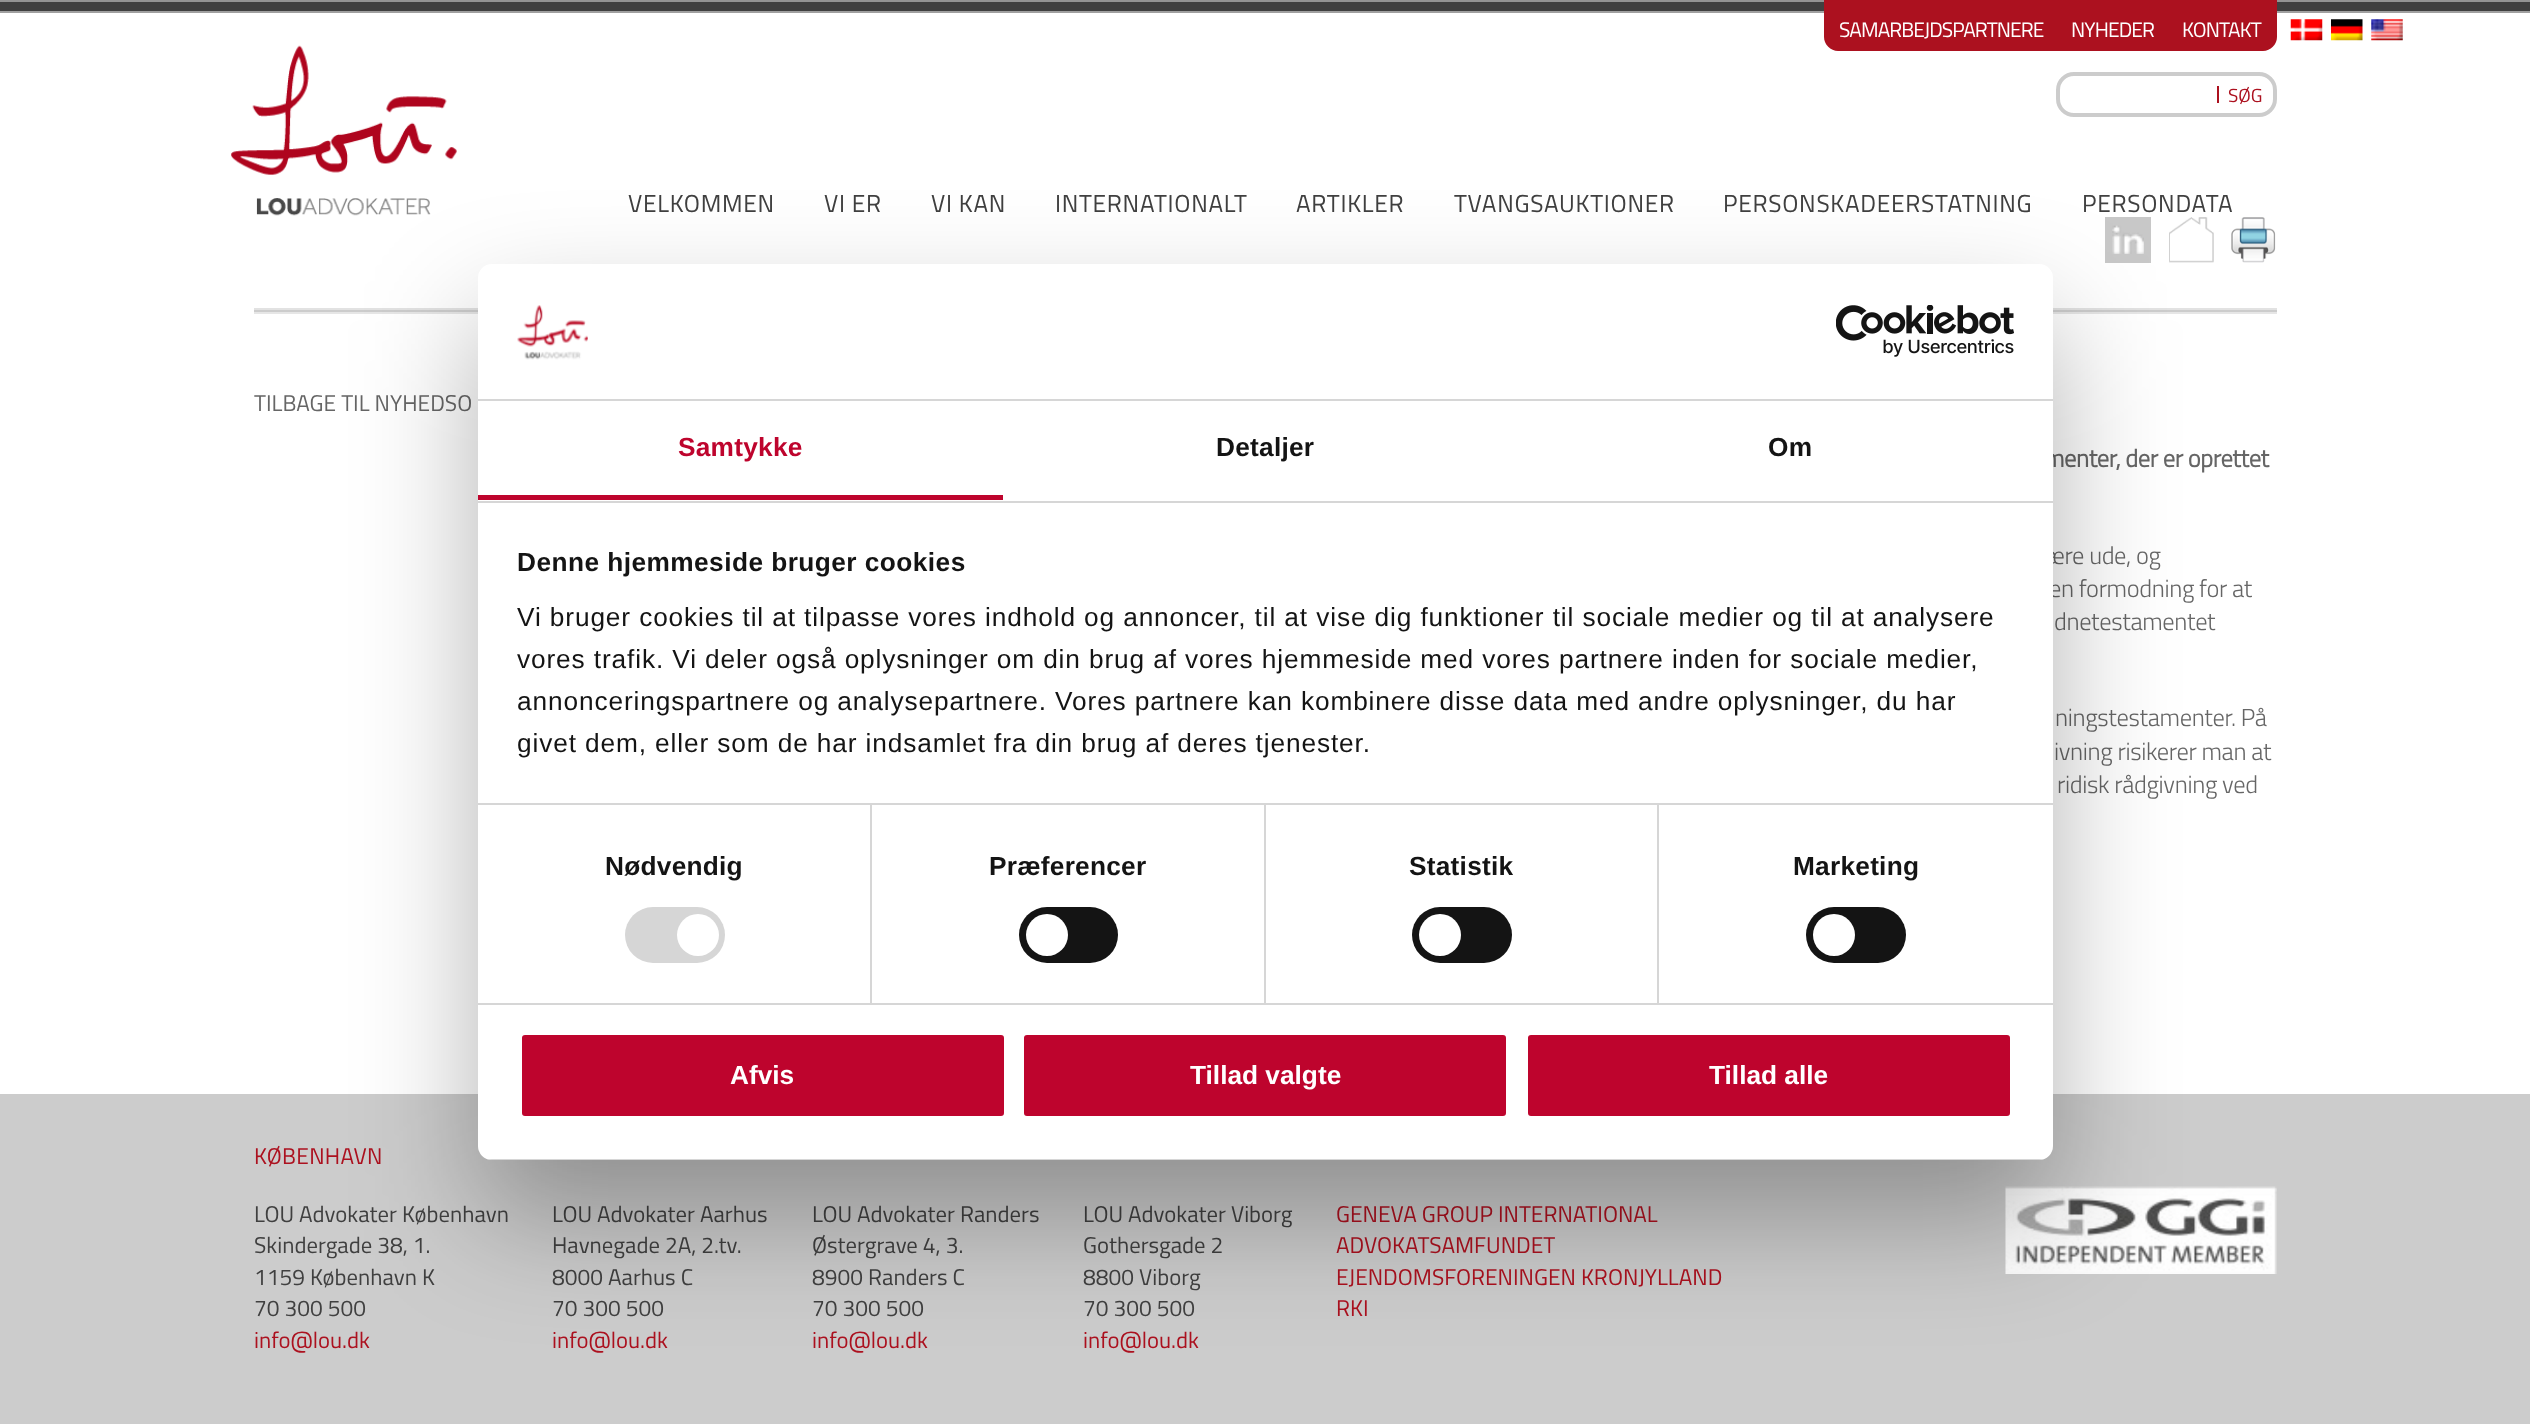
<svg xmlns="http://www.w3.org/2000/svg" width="2530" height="1424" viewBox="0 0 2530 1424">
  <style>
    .t1 { font: 21px Titillium Web; letter-spacing: -0.9px; fill: #fff; }
    .t2 { font: 19px Titillium Web; fill: #ac111f; }
    .t3 { font: 24.5px Titillium Web; letter-spacing: 0.7px; fill: #404040; }
    .t4 { font: 22.75px Titillium Web; fill: #666; }
    .t5 { font: bold 24.5px Titillium Web; letter-spacing: -0.35px; fill: #666; }
    .t6 { font: 300 24.5px Titillium Web; letter-spacing: -0.35px; fill: #666; }
    .t7 { font: 22.75px Titillium Web; letter-spacing: 0.25px; fill: #ac111f; }
    .t8 { font: 22.75px Titillium Web; fill: #404040; }
    .t9 { font: 22.75px Titillium Web; fill: #ac111f; }
    .t10 { font: bold 26.25px Liberation Sans; letter-spacing: 0.25px; fill: #be042d; }
    .t11 { font: bold 26.25px Liberation Sans; letter-spacing: 0.25px; fill: #141414; }
    .t12 { font: bold 26.25px Liberation Sans; letter-spacing: 0.45px; fill: #141414; }
    .t13 { font: 26.25px Liberation Sans; letter-spacing: 0.88px; fill: #141414; }
    .t14 { font: bold 26.25px Liberation Sans; fill: #fff; }
  </style>
  <defs>
    <clipPath id="clip1"><rect x="478" y="264" width="1575" height="896" rx="14"/></clipPath>
  </defs>
  <rect width="100%" height="100%" fill="#fff"/>
  <rect x="0" y="2" width="2530" height="9" fill="#404040"/>
  <rect x="0" y="0" width="2530" height="2" fill="#949494"/>
  <rect x="0" y="11" width="2530" height="2" fill="#a0a0a0"/>
  <path d="M1824 0H2277V37C2277 44.5 2270.5 51 2263 51H1838C1830.5 51 1824 44.5 1824 37Z" fill="#ac111f"/>
  <text x="1839" y="37" class="t1">SAMARBEJDSPARTNERE</text>
  <text x="2071" y="37" class="t1">NYHEDER</text>
  <text x="2182" y="37" class="t1">KONTAKT</text>
  <image x="2290" y="19" width="33" height="22" href="images/1.png"/>
  <image x="2331" y="19" width="32" height="22" href="images/2.png"/>
  <image x="2371" y="19" width="32" height="22" href="images/3.png"/>
  <image x="231" y="45" width="226" height="171" href="images/4.png"/>
  <rect x="2058" y="74" width="217" height="41" rx="16" fill="none" stroke="#ccc" stroke-width="4"/>
  <rect x="2217" y="86" width="2" height="17" fill="#ac111f"/>
  <text x="2228" y="102" class="t2">SØG</text>
  <text x="628" y="212" class="t3">VELKOMMEN</text>
  <text x="824" y="212" class="t3">VI ER</text>
  <text x="931" y="212" class="t3">VI KAN</text>
  <text x="1055" y="212" class="t3">INTERNATIONALT</text>
  <text x="1296" y="212" class="t3">ARTIKLER</text>
  <text x="1454" y="212" class="t3">TVANGSAUKTIONER</text>
  <text x="1723" y="212" class="t3">PERSONSKADEERSTATNING</text>
  <text x="2082" y="212" class="t3">PERSONDATA</text>
  <rect x="2105" y="217" width="46" height="46" fill="#c8c8c8"/>
  <image x="2112" y="225" width="32" height="29" href="images/5.png"/>
  <image x="2169" y="217" width="45" height="46" href="images/6.png"/>
  <image x="2231" y="217" width="45" height="46" href="images/7.png"/>
  <rect x="254" y="310" width="2023" height="2" fill="#ccc"/>
  <rect x="254" y="308" width="2023" height="2" fill="#e2e2e2"/>
  <rect x="254" y="312" width="2023" height="2" fill="#e6e6e6"/>
  <text x="254" y="411" class="t4">TILBAGE TIL NYHEDSO</text>
  <text x="2044" y="467" class="t5">menter, der er oprettet</text>
  <text x="2045" y="564" class="t6">ære ude, og</text>
  <text x="2049" y="597" class="t6">en formodning for at</text>
  <text x="2054" y="630" class="t6">dnetestamentet</text>
  <text x="2055" y="726" class="t6">ningstestamenter. På</text>
  <text x="2054" y="760" class="t6">ivning risikerer man at</text>
  <text x="2057" y="793" class="t6">ridisk rådgivning ved</text>
  <rect x="0" y="1094" width="2530" height="330" fill="#ccc"/>
  <text x="254" y="1164" class="t7">KØBENHAVN</text>
  <text x="254" y="1222" class="t8">LOU Advokater København</text>
  <text x="254" y="1253" class="t8">Skindergade 38, 1.</text>
  <text x="254" y="1285" class="t8">1159 København K</text>
  <text x="254" y="1316" class="t8">70 300 500</text>
  <text x="254" y="1348" class="t9">info@lou.dk</text>
  <text x="552" y="1222" class="t8">LOU Advokater Aarhus</text>
  <text x="552" y="1253" class="t8">Havnegade 2A, 2.tv.</text>
  <text x="552" y="1285" class="t8">8000 Aarhus C</text>
  <text x="552" y="1316" class="t8">70 300 500</text>
  <text x="552" y="1348" class="t9">info@lou.dk</text>
  <text x="812" y="1222" class="t8">LOU Advokater Randers</text>
  <text x="812" y="1253" class="t8">Østergrave 4, 3.</text>
  <text x="812" y="1285" class="t8">8900 Randers C</text>
  <text x="812" y="1316" class="t8">70 300 500</text>
  <text x="812" y="1348" class="t9">info@lou.dk</text>
  <text x="1083" y="1222" class="t8">LOU Advokater Viborg</text>
  <text x="1083" y="1253" class="t8">Gothersgade 2</text>
  <text x="1083" y="1285" class="t8">8800 Viborg</text>
  <text x="1083" y="1316" class="t8">70 300 500</text>
  <text x="1083" y="1348" class="t9">info@lou.dk</text>
  <text x="1336" y="1222" class="t9">GENEVA GROUP INTERNATIONAL</text>
  <text x="1336" y="1253" class="t9">ADVOKATSAMFUNDET</text>
  <text x="1336" y="1285" class="t9">EJENDOMSFORENINGEN KRONJYLLAND</text>
  <text x="1336" y="1316" class="t9">RKI</text>
  <image x="2005" y="1186" width="272" height="88" href="images/8.png"/>
  <rect x="478" y="320" width="1575" height="896" rx="14" fill="#0000004d" filter="blur(59.5px)"/>
  <rect x="478" y="264" width="1575" height="896" rx="14" fill="#fff"/>
  <rect x="478" y="399" width="1575" height="2" fill="#d6d6d6"/>
  <image x="517" y="305" width="71" height="55" href="images/9.png"/>
  <image x="1836" y="305" width="178" height="52" href="images/10.png"/>
  <rect x="478" y="501" width="1575" height="2" fill="#d6d6d6"/>
  <rect x="478" y="495" width="525" height="5" fill="#be042d"/>
  <text x="678" y="456" class="t10">Samtykke</text>
  <text x="1216" y="456" class="t11">Detaljer</text>
  <text x="1768" y="456" class="t11">Om</text>
  <rect x="478" y="803" width="1575" height="2" fill="#d6d6d6"/>
  <text x="517" y="571" class="t12">Denne hjemmeside bruger cookies</text>
  <text x="517" y="626" class="t13">Vi bruger cookies til at tilpasse vores indhold og annoncer, til at vise dig funktioner til sociale medier og til at analysere</text>
  <text x="517" y="668" class="t13">vores trafik. Vi deler også oplysninger om din brug af vores hjemmeside med vores partnere inden for sociale medier,</text>
  <text x="517" y="710" class="t13">annonceringspartnere og analysepartnere. Vores partnere kan kombinere disse data med andre oplysninger, du har</text>
  <text x="517" y="752" class="t13">givet dem, eller som de har indsamlet fra din brug af deres tjenester.</text>
  <rect x="478" y="1003" width="1575" height="2" fill="#d6d6d6"/>
  <rect x="870" y="805" width="2" height="198" fill="#d6d6d6"/>
  <text x="605" y="875" class="t11">Nødvendig</text>
  <rect x="625" y="907" width="100" height="56" rx="28" fill="#d6d6d6"/>
  <circle cx="698" cy="935" r="21" fill="#fff"/>
  <rect x="1264" y="805" width="2" height="198" fill="#d6d6d6"/>
  <text x="989" y="875" class="t11">Præferencer</text>
  <rect x="1019" y="907" width="99" height="56" rx="28" fill="#141414"/>
  <circle cx="1047" cy="935" r="21" fill="#fff"/>
  <rect x="1657" y="805" width="2" height="198" fill="#d6d6d6"/>
  <text x="1409" y="875" class="t11">Statistik</text>
  <rect x="1412" y="907" width="100" height="56" rx="28" fill="#141414"/>
  <circle cx="1440" cy="935" r="21" fill="#fff"/>
  <text x="1793" y="875" class="t11">Marketing</text>
  <rect x="1806" y="907" width="100" height="56" rx="28" fill="#141414"/>
  <circle cx="1834" cy="935" r="21" fill="#fff"/>
  <g clip-path="url(#clip1)">
    <rect x="487" y="1159" width="1557" height="1" fill="#d6d6d6"/>
  </g>
  <rect x="520" y="1033" width="486" height="85" rx="5" fill="#be042d" stroke="#fff" stroke-width="4"/>
  <text x="730" y="1084" class="t14">Afvis</text>
  <rect x="1022" y="1033" width="486" height="85" rx="5" fill="#be042d" stroke="#fff" stroke-width="4"/>
  <text x="1190" y="1084" class="t14">Tillad valgte</text>
  <rect x="1526" y="1033" width="486" height="85" rx="5" fill="#be042d" stroke="#fff" stroke-width="4"/>
  <text x="1709" y="1084" class="t14">Tillad alle</text>
</svg>
